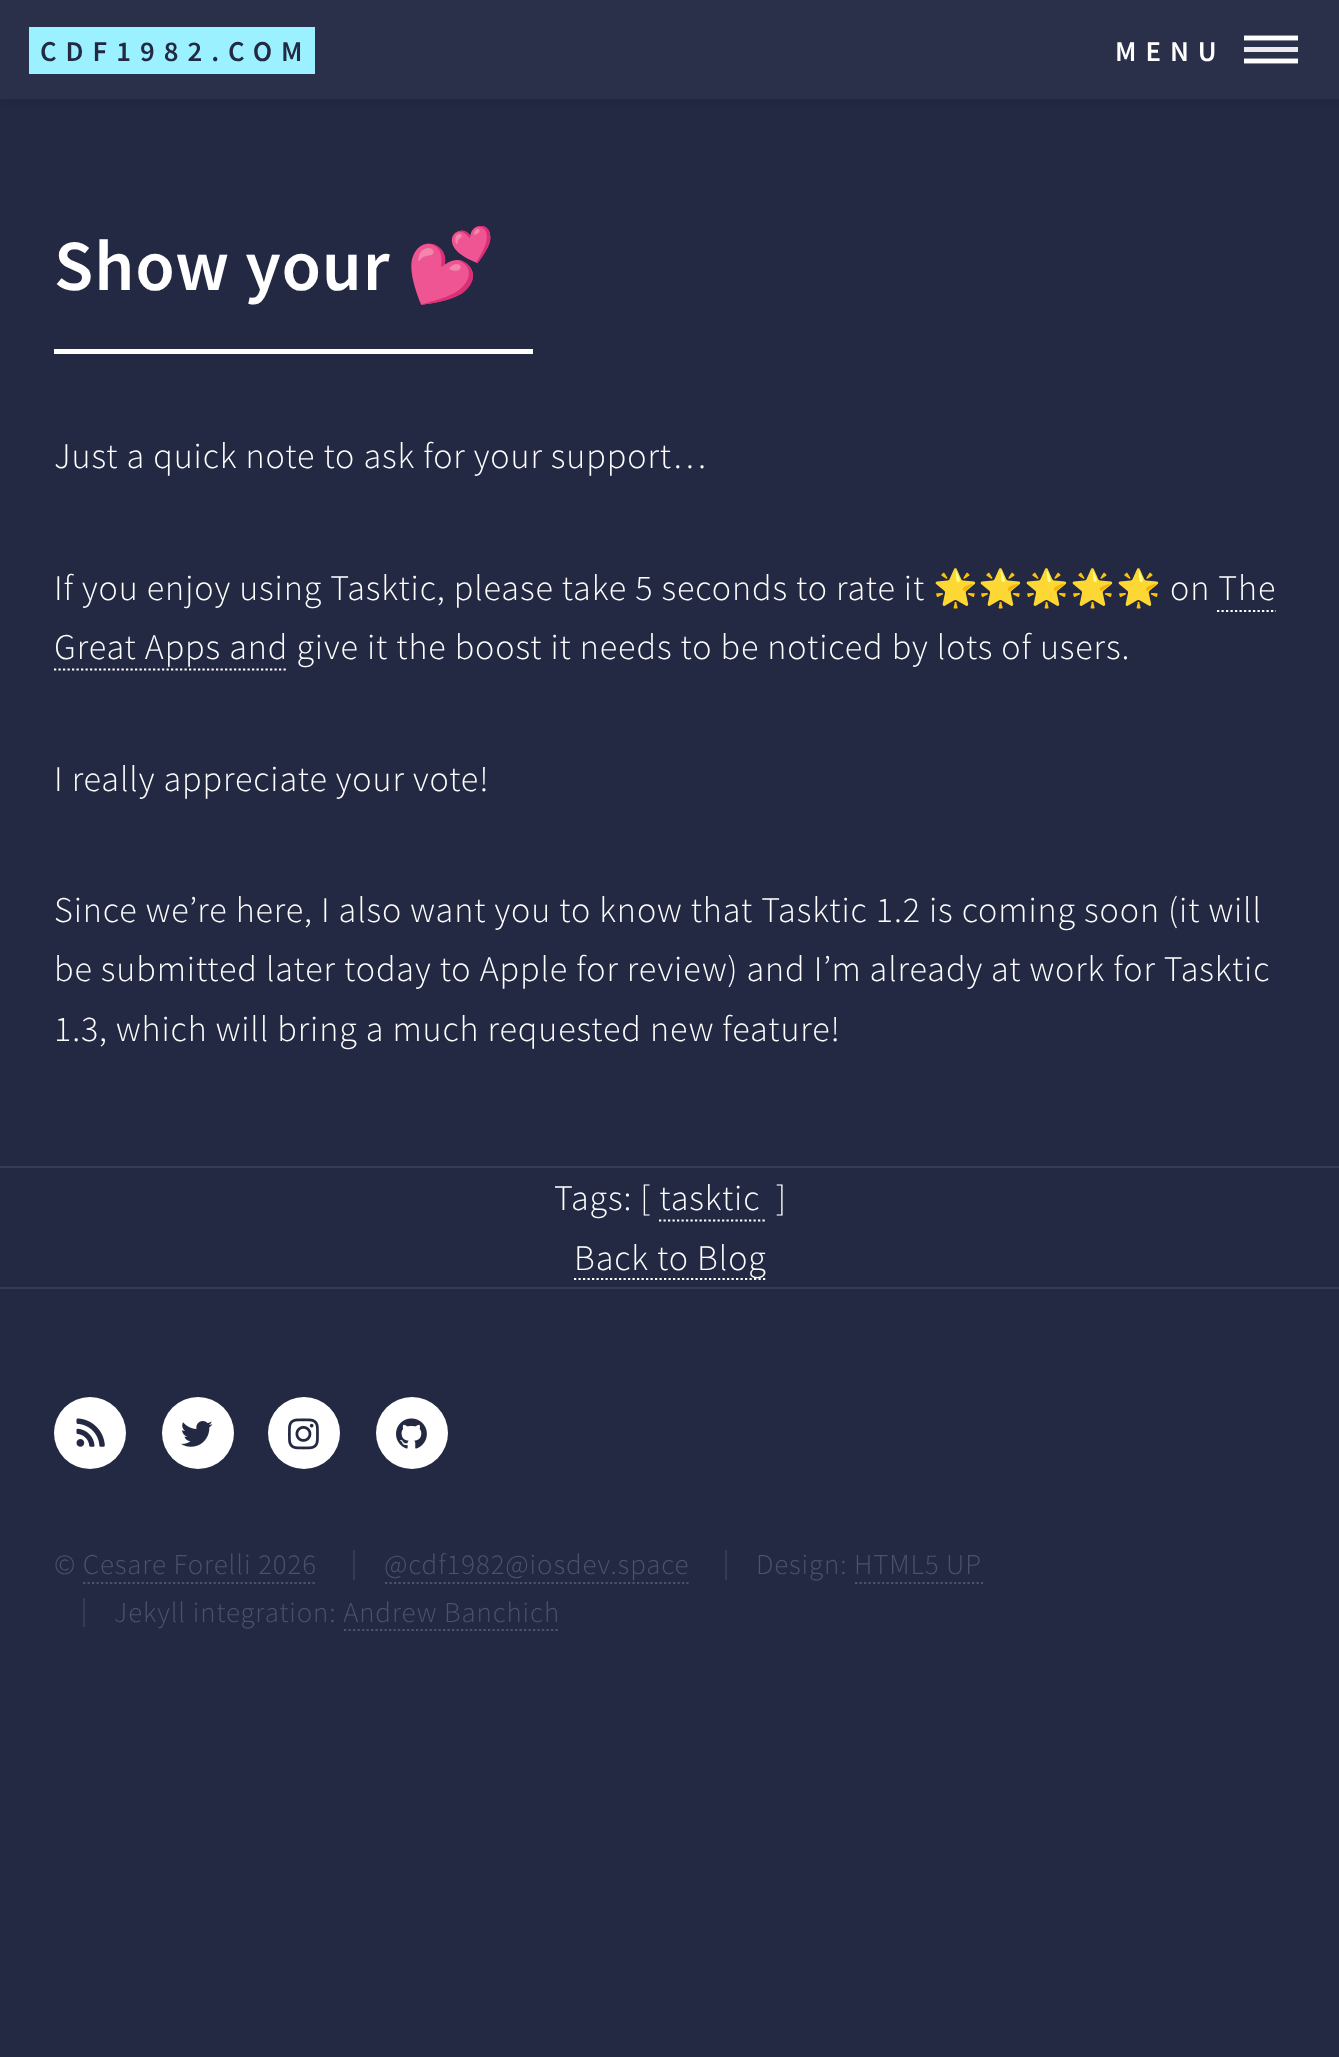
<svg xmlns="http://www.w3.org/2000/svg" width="1339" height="2057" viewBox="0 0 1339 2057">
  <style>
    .t1 { font: 600 28.75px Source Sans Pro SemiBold; letter-spacing: 9px; fill: #242943; }
    .t2 { font: 600 28.75px Source Sans Pro SemiBold; letter-spacing: 9px; fill: #fff; }
    .t3 { font: 600 72px Source Sans Pro SemiBold; letter-spacing: 0.9px; fill: #fff; }
    .t4 { font: bold 72px Noto Color Emoji; letter-spacing: 0.9px; fill: #fff; }
    .t5 { font: 300 36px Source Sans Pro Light; letter-spacing: 0.9px; fill: #fff; }
    .t6 { font: 36px Noto Color Emoji; letter-spacing: 0.9px; fill: #fff; }
    .t7 { font: 300 28.75px Source Sans Pro Light; letter-spacing: 0.9px; fill: #4e5269; }
  </style>
  <rect width="100%" height="100%" fill="#242943"/>
  <rect x="0" y="0" width="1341" height="99" fill="#00000026" filter="blur(4.5px)"/>
  <rect x="0" y="0" width="1339" height="99" fill="#2a2f4a"/>
  <rect x="29" y="27" width="286" height="47" fill="#9bf1ff"/>
  <text x="40" y="61" class="t1">CDF1982.COM</text>
  <path d="M1244 38H1298M1244 61H1298" fill="none" stroke="#fff" stroke-width="4.5"/>
  <rect x="1244" y="47" width="54" height="5" fill="#eaeaed"/>
  <text x="1115" y="61" class="t2">MENU</text>
  <path d="M1244 38H1298M1244 61H1298" fill="none" stroke="#fff" stroke-width="4.5"/>
  <rect x="0" y="1287" width="1339" height="2" fill="#363a56"/>
  <text x="54" y="290" class="t3">Show your</text>
  <text x="406" y="290" class="t4">💕</text>
  <rect x="54" y="349" width="479" height="5" fill="#fff"/>
  <text x="54" y="468" class="t5">Just a quick note to ask for your support…</text>
  <text x="54" y="600" class="t5">If you enjoy using Tasktic, please take 5 seconds to rate it</text>
  <text x="933" y="600" class="t6">🌟🌟🌟🌟🌟</text>
  <text x="1170" y="600" class="t5">on The</text>
  <text x="54" y="659" class="t5">Great Apps and give it the boost it needs to be noticed by lots of users.</text>
  <path d="M1217 611H1276" fill="none" stroke="#fff" stroke-width="2.2" stroke-dasharray="2.25 2.25"/>
  <path d="M54 669.5H220.5" fill="none" stroke="#fff" stroke-width="2.2" stroke-dasharray="2.25 2.25"/>
  <path d="M220.5 669.5H288" fill="none" stroke="#fff" stroke-width="2.2" stroke-dasharray="2.25 2.25"/>
  <text x="54" y="791" class="t5">I really appreciate your vote!</text>
  <text x="54" y="922" class="t5">Since we’re here, I also want you to know that Tasktic 1.2 is coming soon (it will</text>
  <text x="54" y="981" class="t5">be submitted later today to Apple for review) and I’m already at work for Tasktic</text>
  <text x="54" y="1041" class="t5">1.3, which will bring a much requested new feature!</text>
  <rect x="0" y="1166" width="1339" height="2" fill="#363a56"/>
  <text x="554" y="1210" class="t5">Tags: [ tasktic</text>
  <text x="776" y="1210" class="t5">]</text>
  <path d="M659 1220.5H767" fill="none" stroke="#fff" stroke-width="2.2" stroke-dasharray="2.25 2.25"/>
  <path d="M574 1279H767" fill="none" stroke="#fff" stroke-width="2.2" stroke-dasharray="2.25 2.25"/>
  <text x="574" y="1270" class="t5">Back to Blog</text>
  <circle cx="90" cy="1433" r="36" fill="#fff"/>
  <image x="76" y="1418" width="29" height="29" href="images/1.png"/>
  <circle cx="198" cy="1433" r="36" fill="#fff"/>
  <image x="181" y="1421" width="32" height="26" href="images/2.png"/>
  <circle cx="304" cy="1433" r="36" fill="#fff"/>
  <image x="288" y="1418" width="31" height="32" href="images/3.png"/>
  <circle cx="412" cy="1433" r="36" fill="#fff"/>
  <image x="396" y="1418" width="31" height="31" href="images/4.png"/>
  <text x="54" y="1574" class="t7">© Cesare Forelli 2026</text>
  <path d="M83 1583H317" fill="none" stroke="#4e5269" stroke-width="2.2" stroke-dasharray="2.25 2.25"/>
  <rect x="353" y="1550" width="2" height="30" fill="#363a56"/>
  <text x="384" y="1574" class="t7">@cdf1982@iosdev.space</text>
  <path d="M385 1583H688.5" fill="none" stroke="#4e5269" stroke-width="2.2" stroke-dasharray="2.25 2.25"/>
  <rect x="725" y="1550" width="2" height="30" fill="#363a56"/>
  <text x="756" y="1574" class="t7">Design: HTML5 UP</text>
  <path d="M855 1583H983" fill="none" stroke="#4e5269" stroke-width="2.2" stroke-dasharray="2.25 2.25"/>
  <rect x="83" y="1598" width="2" height="29" fill="#363a56"/>
  <text x="114" y="1622" class="t7">Jekyll integration: Andrew Banchich</text>
  <path d="M344 1630H560" fill="none" stroke="#4e5269" stroke-width="2.2" stroke-dasharray="2.25 2.25"/>
</svg>
